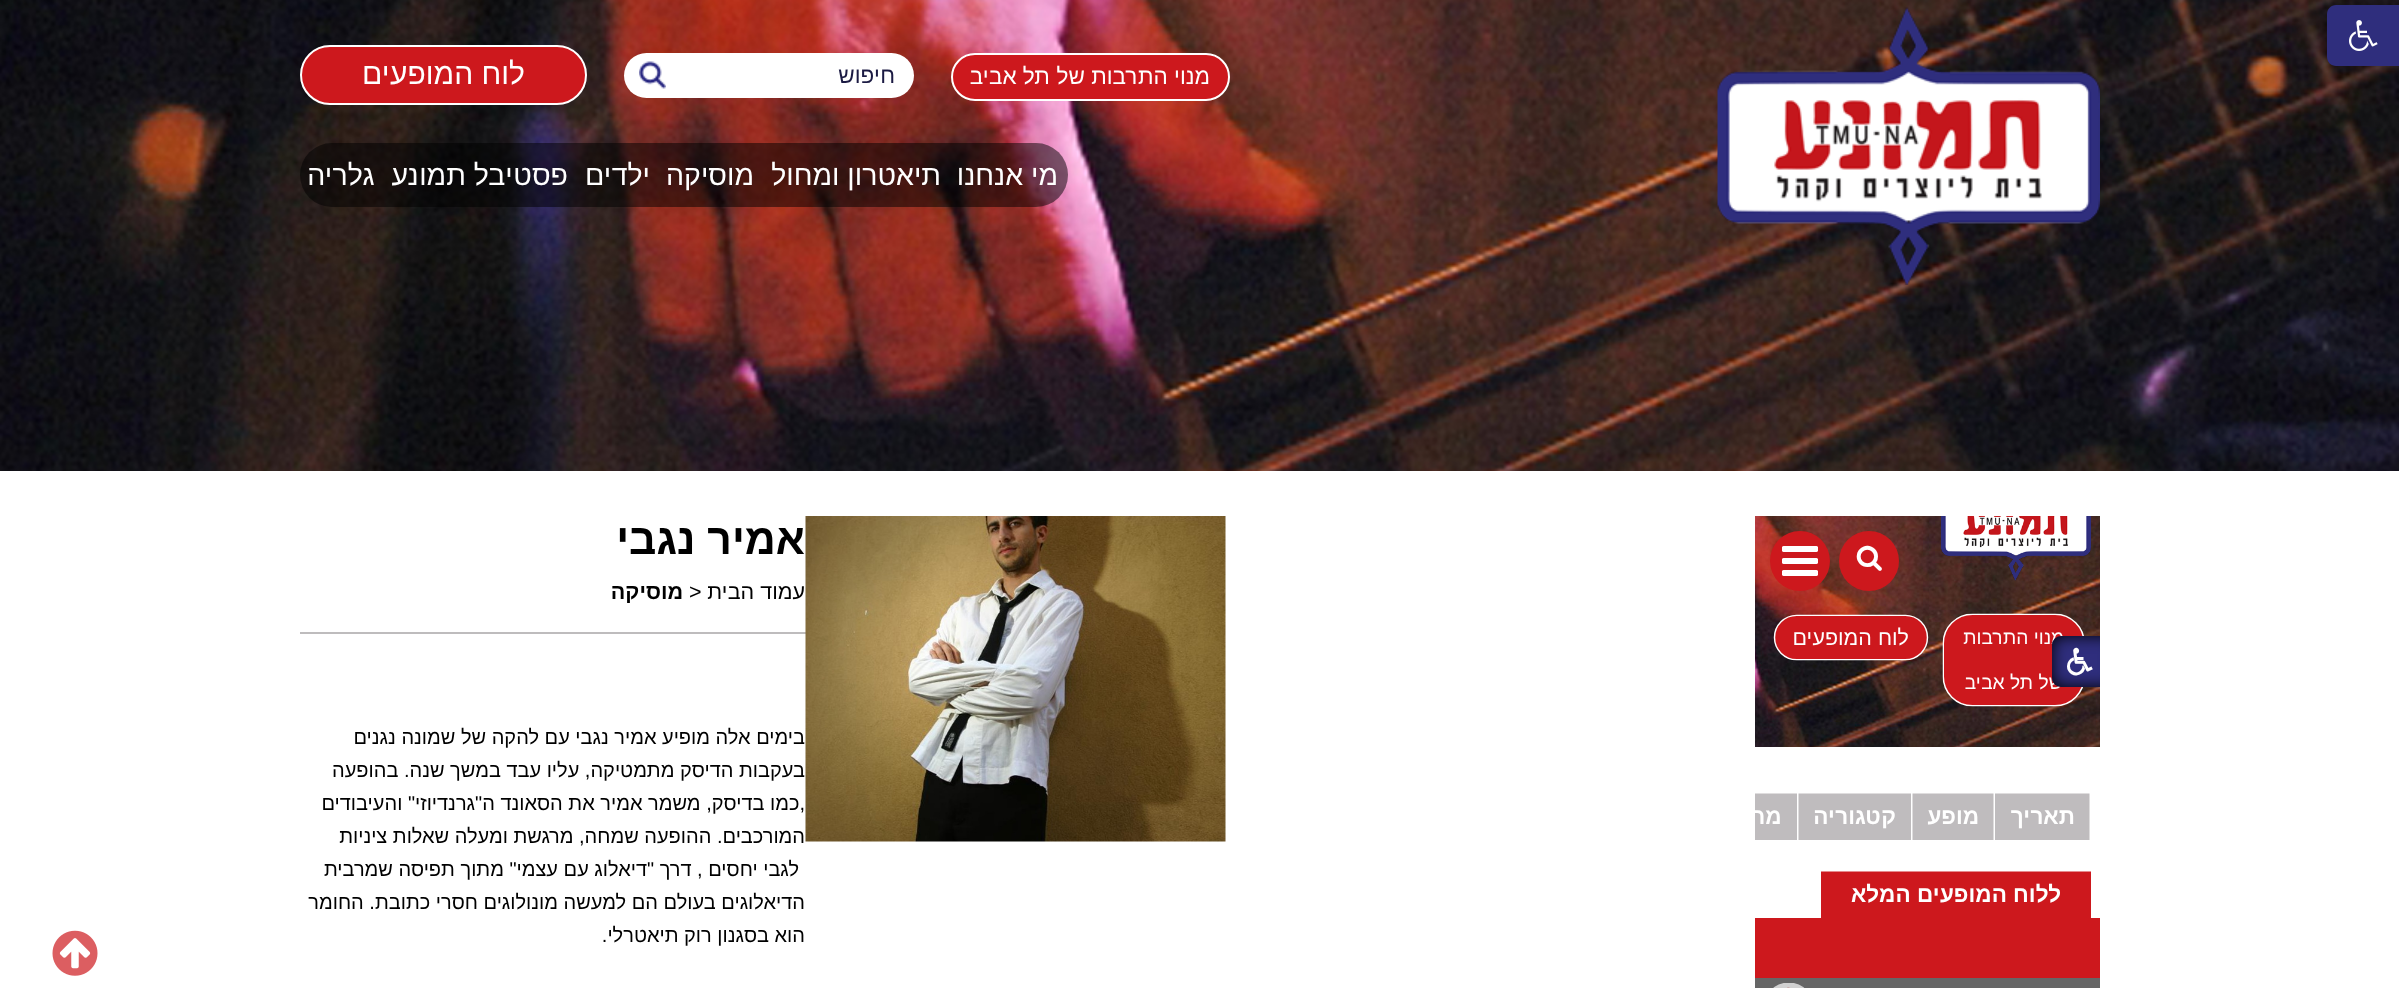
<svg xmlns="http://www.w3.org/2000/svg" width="2399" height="988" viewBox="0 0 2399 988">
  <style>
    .t1 { font: 22.5px Arimo; direction: rtl; fill: #fff; }
    .t2 { font: 22.5px Arimo; direction: rtl; fill: #1b1a43; }
    .t3 { font: 30px Arimo; direction: rtl; fill: #fff; }
    .t4 { font: 28.5px Arimo; direction: rtl; fill: #fff; }
    .t5 { font: bold 42.75px Arimo; direction: rtl; fill: #000; }
    .t6 { font: 21.5px Arimo; direction: rtl; fill: #000; }
    .t7 { font: 21.5px Arimo; fill: #000; }
    .t8 { font: bold 21.5px Arimo; direction: rtl; fill: #000; }
    .t9 { font: 20px Liberation Sans; direction: rtl; fill: #000; }
  </style>
  <rect width="100%" height="100%" fill="#fff"/>
  <image x="0" y="0" width="2399" height="471" href="images/1.png"/>
  <path d="M2336 5H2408V66H2336C2331 66 2327 62 2327 57V14C2327 9 2331 5 2336 5Z" fill="#2f2e7d"/>
  <image x="2349" y="20" width="29" height="31" href="images/2.png"/>
  <rect x="952" y="54" width="277" height="46" rx="23" fill="#cd181d" stroke="#fff" stroke-width="2"/>
  <text x="1210" y="84" class="t1">מנוי התרבות של תל אביב</text>
  <rect x="624" y="53" width="290" height="45" rx="22.5" fill="#fff"/>
  <text x="895" y="83" class="t2">חיפוש</text>
  <image x="639" y="61" width="27" height="28" href="images/3.png"/>
  <rect x="301" y="46" width="285" height="58" rx="29" fill="#cd181d" stroke="#fff" stroke-width="2"/>
  <text x="525" y="84" class="t3">לוח המופעים</text>
  <image x="1717" y="7" width="383" height="278" href="images/4.png"/>
  <rect x="300" y="143" width="768" height="64" rx="32" fill="#00000080"/>
  <text x="1058" y="185" class="t4">מי אנחנו</text>
  <text x="941" y="185" class="t4">תיאטרון ומחול</text>
  <text x="754" y="185" class="t4">מוסיקה</text>
  <text x="650" y="185" class="t4">ילדים</text>
  <text x="568" y="185" class="t4">פסטיבל תמונע</text>
  <text x="375" y="185" class="t4">גלריה</text>
  <image x="1755" y="516" width="345" height="472" href="images/5.png"/>
  <rect x="300" y="632" width="506" height="2" fill="#bebcbd"/>
  <image x="805" y="516" width="421" height="326" href="images/6.png"/>
  <text x="805" y="554" class="t5">אמיר נגבי</text>
  <text x="805" y="599" class="t6">עמוד הבית</text>
  <text x="689" y="599" class="t7">&gt;</text>
  <text x="683" y="599" class="t8">מוסיקה</text>
  <text x="805" y="744" class="t9">בימים אלה מופיע אמיר נגבי עם להקה של שמונה נגנים</text>
  <text x="805" y="777" class="t9">בעקבות הדיסק מתמטיקה, עליו עבד במשך שנה. בהופעה</text>
  <text x="805" y="810" class="t9">,כמו בדיסק, משמר אמיר את הסאונד ה"גרנדיוזי" והעיבודים</text>
  <text x="805" y="843" class="t9">המורכבים. ההופעה שמחה, מרגשת ומעלה שאלות ציניות</text>
  <text x="799" y="876" class="t9">לגבי יחסים , דרך "דיאלוג עם עצמי" מתוך תפיסה שמרבית</text>
  <text x="805" y="909" class="t9">הדיאלוגים בעולם הם למעשה מונולוגים חסרי כתובת. החומר</text>
  <text x="805" y="942" class="t9">הוא בסגנון רוק תיאטרלי.</text>
  <image x="52" y="930" width="46" height="46" href="images/7.png"/>
</svg>
